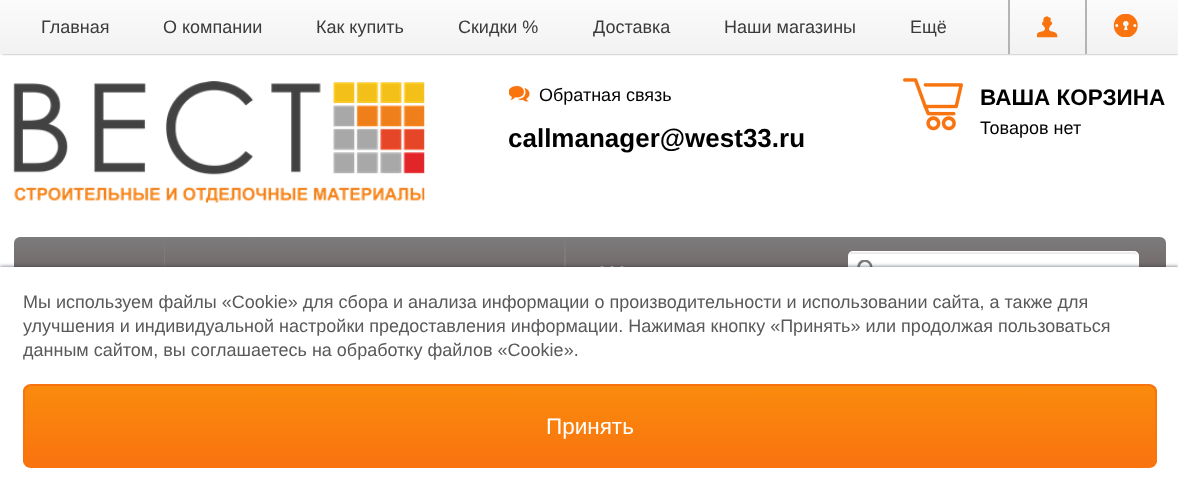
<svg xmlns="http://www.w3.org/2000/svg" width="1178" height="504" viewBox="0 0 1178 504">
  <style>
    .t1 { font: 18px Liberation Sans; fill: #3b3b3b; }
    .t2 { font: 18px Liberation Sans; fill: #000; }
    .t3 { font: bold 26px Liberation Sans; fill: #000; }
    .t4 { font: bold 22.5px Liberation Sans; fill: #000; }
    .t5 { font: 18px Liberation Sans; fill: #58595b; }
    .t6 { font: 22.5px Liberation Sans; fill: #fff; }
  </style>
  <defs>
    <linearGradient id="g1" gradientUnits="userSpaceOnUse" x1="590" y1="0" x2="590" y2="54"><stop offset="0" stop-color="#fbfbfb"/><stop offset="1" stop-color="#f2f2f2"/></linearGradient>
    <linearGradient id="g2" gradientUnits="userSpaceOnUse" x1="590" y1="237" x2="590" y2="302"><stop offset="0" stop-color="#7c7c7c"/><stop offset="1" stop-color="#695757"/></linearGradient>
    <clipPath id="clip1"><rect x="23" y="384" width="1134" height="84" rx="8"/></clipPath>
    <linearGradient id="g3" gradientUnits="userSpaceOnUse" x1="590" y1="385" x2="590" y2="467"><stop offset="0" stop-color="#fa8b0d"/><stop offset="1" stop-color="#f9730e"/></linearGradient>
  </defs>
  <rect width="100%" height="100%" fill="#fff"/>
  <rect x="2" y="2" width="1176" height="51" fill="#000" filter="blur(1.5px)"/>
  <rect x="0" y="0" width="1178" height="54" fill="url(#g1)"/>
  <text x="41" y="33" class="t1">Главная</text>
  <text x="163" y="33" class="t1">О компании</text>
  <text x="316" y="33" class="t1">Как купить</text>
  <text x="458" y="33" class="t1">Скидки %</text>
  <text x="593" y="33" class="t1">Доставка</text>
  <text x="724" y="33" class="t1">Наши магазины</text>
  <text x="910" y="33" class="t1">Ещё</text>
  <rect x="1008" y="0" width="2" height="54" fill="#b4b4b4"/>
  <image x="1037" y="16" width="21" height="22" href="images/1.png"/>
  <rect x="1085" y="0" width="2" height="54" fill="#b4b4b4"/>
  <image x="1113" y="14" width="25" height="23" href="images/2.png"/>
  <image x="13" y="81" width="412" height="122" href="images/3.png"/>
  <image x="509" y="86" width="21" height="16" href="images/4.png"/>
  <text x="539" y="101" class="t2">Обратная связь</text>
  <text x="508" y="147" class="t3">callmanager@west33.ru</text>
  <image x="903" y="78" width="60" height="53" href="images/5.png"/>
  <text x="980" y="105" class="t4">ВАША КОРЗИНА</text>
  <text x="980" y="134" class="t2">Товаров нет</text>
  <rect x="14" y="237" width="1152" height="65" rx="6" fill="url(#g2)"/>
  <path d="M165 237V302H164V238Z" fill="#7c7c7c"/>
  <path d="M566 237V302H564V238Z" fill="#7c7c7c"/>
  <image x="600" y="266" width="24" height="1" href="images/6.png"/>
  <rect x="848" y="251" width="291" height="34" rx="5" fill="#fff"/>
  <path d="M852 254H1134C1136 254 1137 255 1137 256C1137 254 1136 252 1134 252H852C850 252 849 254 849 256C849 255 850 254 852 254Z" fill="#ececec"/>
  <rect x="849" y="252" width="289" height="32" rx="4" fill="none" stroke="#ffffff33" stroke-width="2"/>
  <image x="857" y="260" width="16" height="7" href="images/7.png"/>
  <rect x="0" y="267" width="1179" height="237" fill="#182532b3" filter="blur(2px)"/>
  <rect x="0" y="267" width="1178" height="237" fill="#fff"/>
  <text x="23" y="308" class="t5">Мы используем файлы «Cookie» для сбора и анализа информации о производительности и использовании сайта, а также для</text>
  <text x="23" y="332" class="t5">улучшения и индивидуальной настройки предоставления информации. Нажимая кнопку «Принять» или продолжая пользоваться</text>
  <text x="23" y="356" class="t5">данным сайтом, вы соглашаетесь на обработку файлов «Cookie».</text>
  <g clip-path="url(#clip1)">
    <rect x="23" y="386" width="1134" height="81" fill="url(#g3)"/>
  </g>
  <rect x="24" y="385" width="1132" height="82" rx="7" fill="none" stroke="#f9730e" stroke-width="2"/>
  <text x="546" y="434" class="t6">Принять</text>
</svg>
